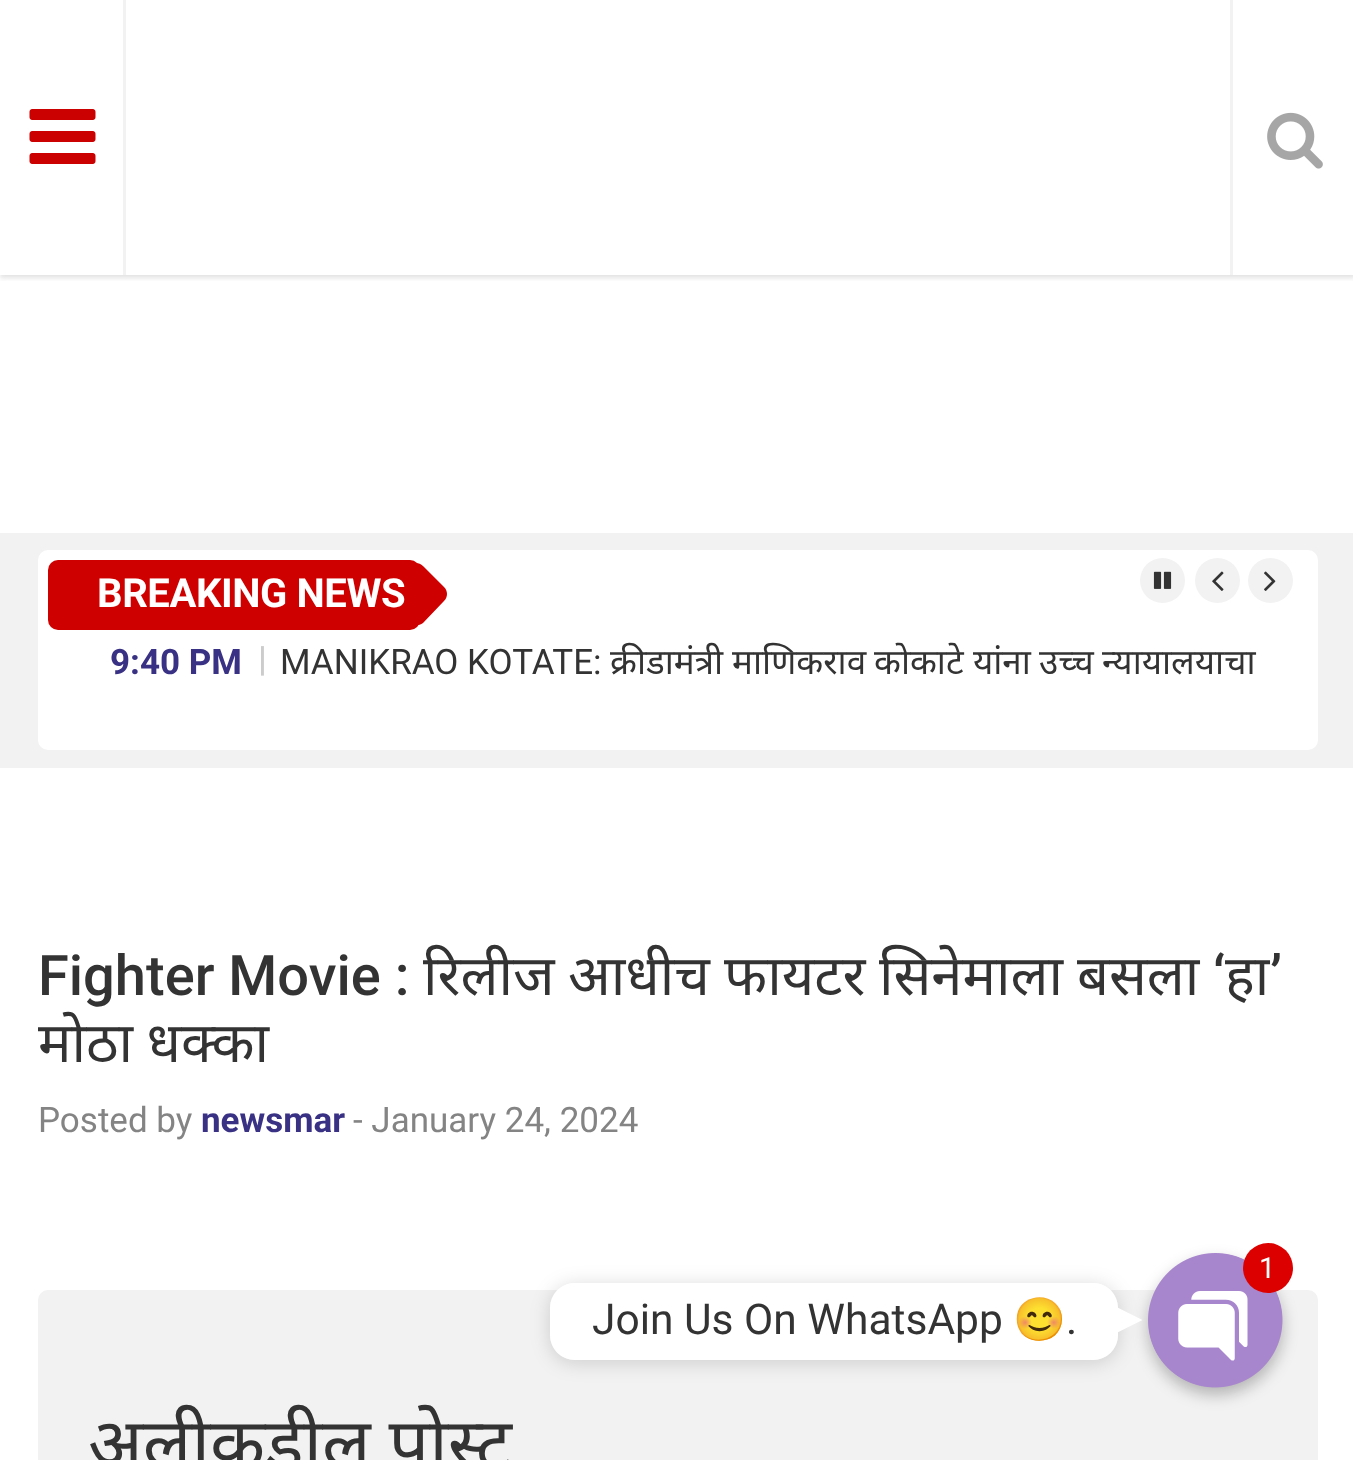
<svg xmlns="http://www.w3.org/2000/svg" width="1353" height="1460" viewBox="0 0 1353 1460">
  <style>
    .t1 { font: bold 40px Roboto; letter-spacing: -0.4px; fill: #fff; }
    .t2 { font: bold 35px Roboto; fill: #393184; }
    .t3 { font: bold 35px Roboto; fill: #ccc; }
    .t4 { font: 35px Roboto; fill: #333; }
    .t5 { font: 35px Noto Sans; fill: #333; }
    .t6 { font: 500 56px Roboto; fill: #333; }
    .t7 { font: 56px Noto Sans; fill: #333; }
    .t8 { font: 35px Roboto; fill: #858484; }
    .t9 { font: 71.75px Noto Sans; fill: #333; }
    .t10 { font: 29px Roboto; fill: #fff; }
    .t11 { font: 42.5px Roboto; fill: #333; }
    .t12 { font: 42.5px Noto Color Emoji; fill: #333; }
  </style>
  <defs>
    <clipPath id="clip1"><rect x="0" y="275" width="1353" height="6"/></clipPath>
    <clipPath id="clip2"><path d="M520 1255H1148V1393H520ZM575 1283H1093C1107 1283 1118 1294 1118 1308V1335C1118 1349 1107 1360 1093 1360H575C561 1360 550 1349 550 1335V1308C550 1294 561 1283 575 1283Z" clip-rule="evenodd"/></clipPath>
  </defs>
  <rect width="100%" height="100%" fill="#fff"/>
  <g clip-path="url(#clip1)">
    <rect x="0" y="3" width="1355" height="275" fill="#6c6c6c33" filter="blur(2.5px)"/>
  </g>
  <rect x="123" y="0" width="3" height="275" fill="#f2f2f2"/>
  <image x="29" y="109" width="67" height="55" href="images/1.png"/>
  <rect x="1230" y="0" width="3" height="275" fill="#f2f2f2"/>
  <image x="1267" y="112" width="56" height="57" href="images/2.png"/>
  <rect x="0" y="533" width="1353" height="235" fill="#f2f2f2"/>
  <rect x="38" y="550" width="1280" height="200" rx="10" fill="#fff"/>
  <rect x="48" y="560" width="372" height="70" rx="10" fill="#cf0000"/>
  <path d="M388 587L409 566C413 562 419 562 423 566L444 587C448 591 448 597 444 601L423 623C419 626 413 626 409 623L388 601C384 597 384 591 388 587Z" fill="#cf0000"/>
  <text x="97" y="607" class="t1">BREAKING NEWS</text>
  <circle cx="1162.5" cy="580.5" r="22.5" fill="#f2f2f2"/>
  <image x="1153" y="571" width="19" height="18" href="images/3.png"/>
  <circle cx="1217.5" cy="580.5" r="22.5" fill="#f2f2f2"/>
  <image x="1212" y="571" width="12" height="20" href="images/4.png"/>
  <circle cx="1270.5" cy="580.5" r="22.5" fill="#f2f2f2"/>
  <image x="1264" y="571" width="12" height="20" href="images/5.png"/>
  <text x="110" y="674" class="t2">9:40 PM</text>
  <text x="258" y="671" class="t3">|</text>
  <text x="280" y="674" class="t4">MANIKRAO KOTATE:</text>
  <text x="610" y="674" class="t5">क्रीडामंत्री</text>
  <text x="732" y="674" class="t5">माणिकराव</text>
  <text x="874" y="674" class="t5">कोकाटे</text>
  <text x="973" y="674" class="t5">यांना</text>
  <text x="1039" y="674" class="t5">उच्च</text>
  <text x="1102" y="674" class="t5">न्यायालयाचा</text>
  <text x="38" y="995" class="t6">Fighter Movie :</text>
  <text x="423" y="995" class="t7">रिलीज</text>
  <text x="568" y="995" class="t7">आधीच</text>
  <text x="724" y="995" class="t7">फायटर</text>
  <text x="879" y="995" class="t7">सिनेमाला</text>
  <text x="1077" y="995" class="t7">बसला</text>
  <text x="1213" y="995" class="t6">‘</text>
  <text x="1225" y="995" class="t7">हा</text>
  <text x="1270" y="995" class="t6">’</text>
  <text x="38" y="1062" word-spacing="-1" class="t7">मोठा धक्का</text>
  <text x="38" y="1132" class="t8">Posted by</text>
  <text x="201" y="1132" class="t2">newsmar</text>
  <text x="353" y="1132" class="t8">- January 24, 2024</text>
  <rect x="38" y="1290" width="1280" height="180" rx="10" fill="#f2f2f2"/>
  <text x="88" y="1469" word-spacing="-1" class="t9">अलीकडील पोस्ट</text>
  <rect x="1148" y="1260" width="135" height="135" rx="67.5" fill="#00000040" filter="blur(7.5px)"/>
  <image x="1148" y="1253" width="135" height="135" href="images/6.png"/>
  <circle cx="1268" cy="1268" r="25" fill="#d00"/>
  <text x="1259" y="1278" class="t10">1</text>
  <g clip-path="url(#clip2)">
    <rect x="550" y="1285" width="568" height="78" rx="25" fill="#00000026" filter="blur(9.5px)"/>
  </g>
  <rect x="550" y="1283" width="568" height="77" rx="25" fill="#fff"/>
  <text x="592" y="1334" class="t11">Join Us On WhatsApp</text>
  <text x="1013" y="1334" class="t12">😊</text>
  <text x="1066" y="1334" class="t11">.</text>
  <path d="M1117.5 1332.5V1307.5L1142.5 1320Z" fill="#fff"/>
</svg>
